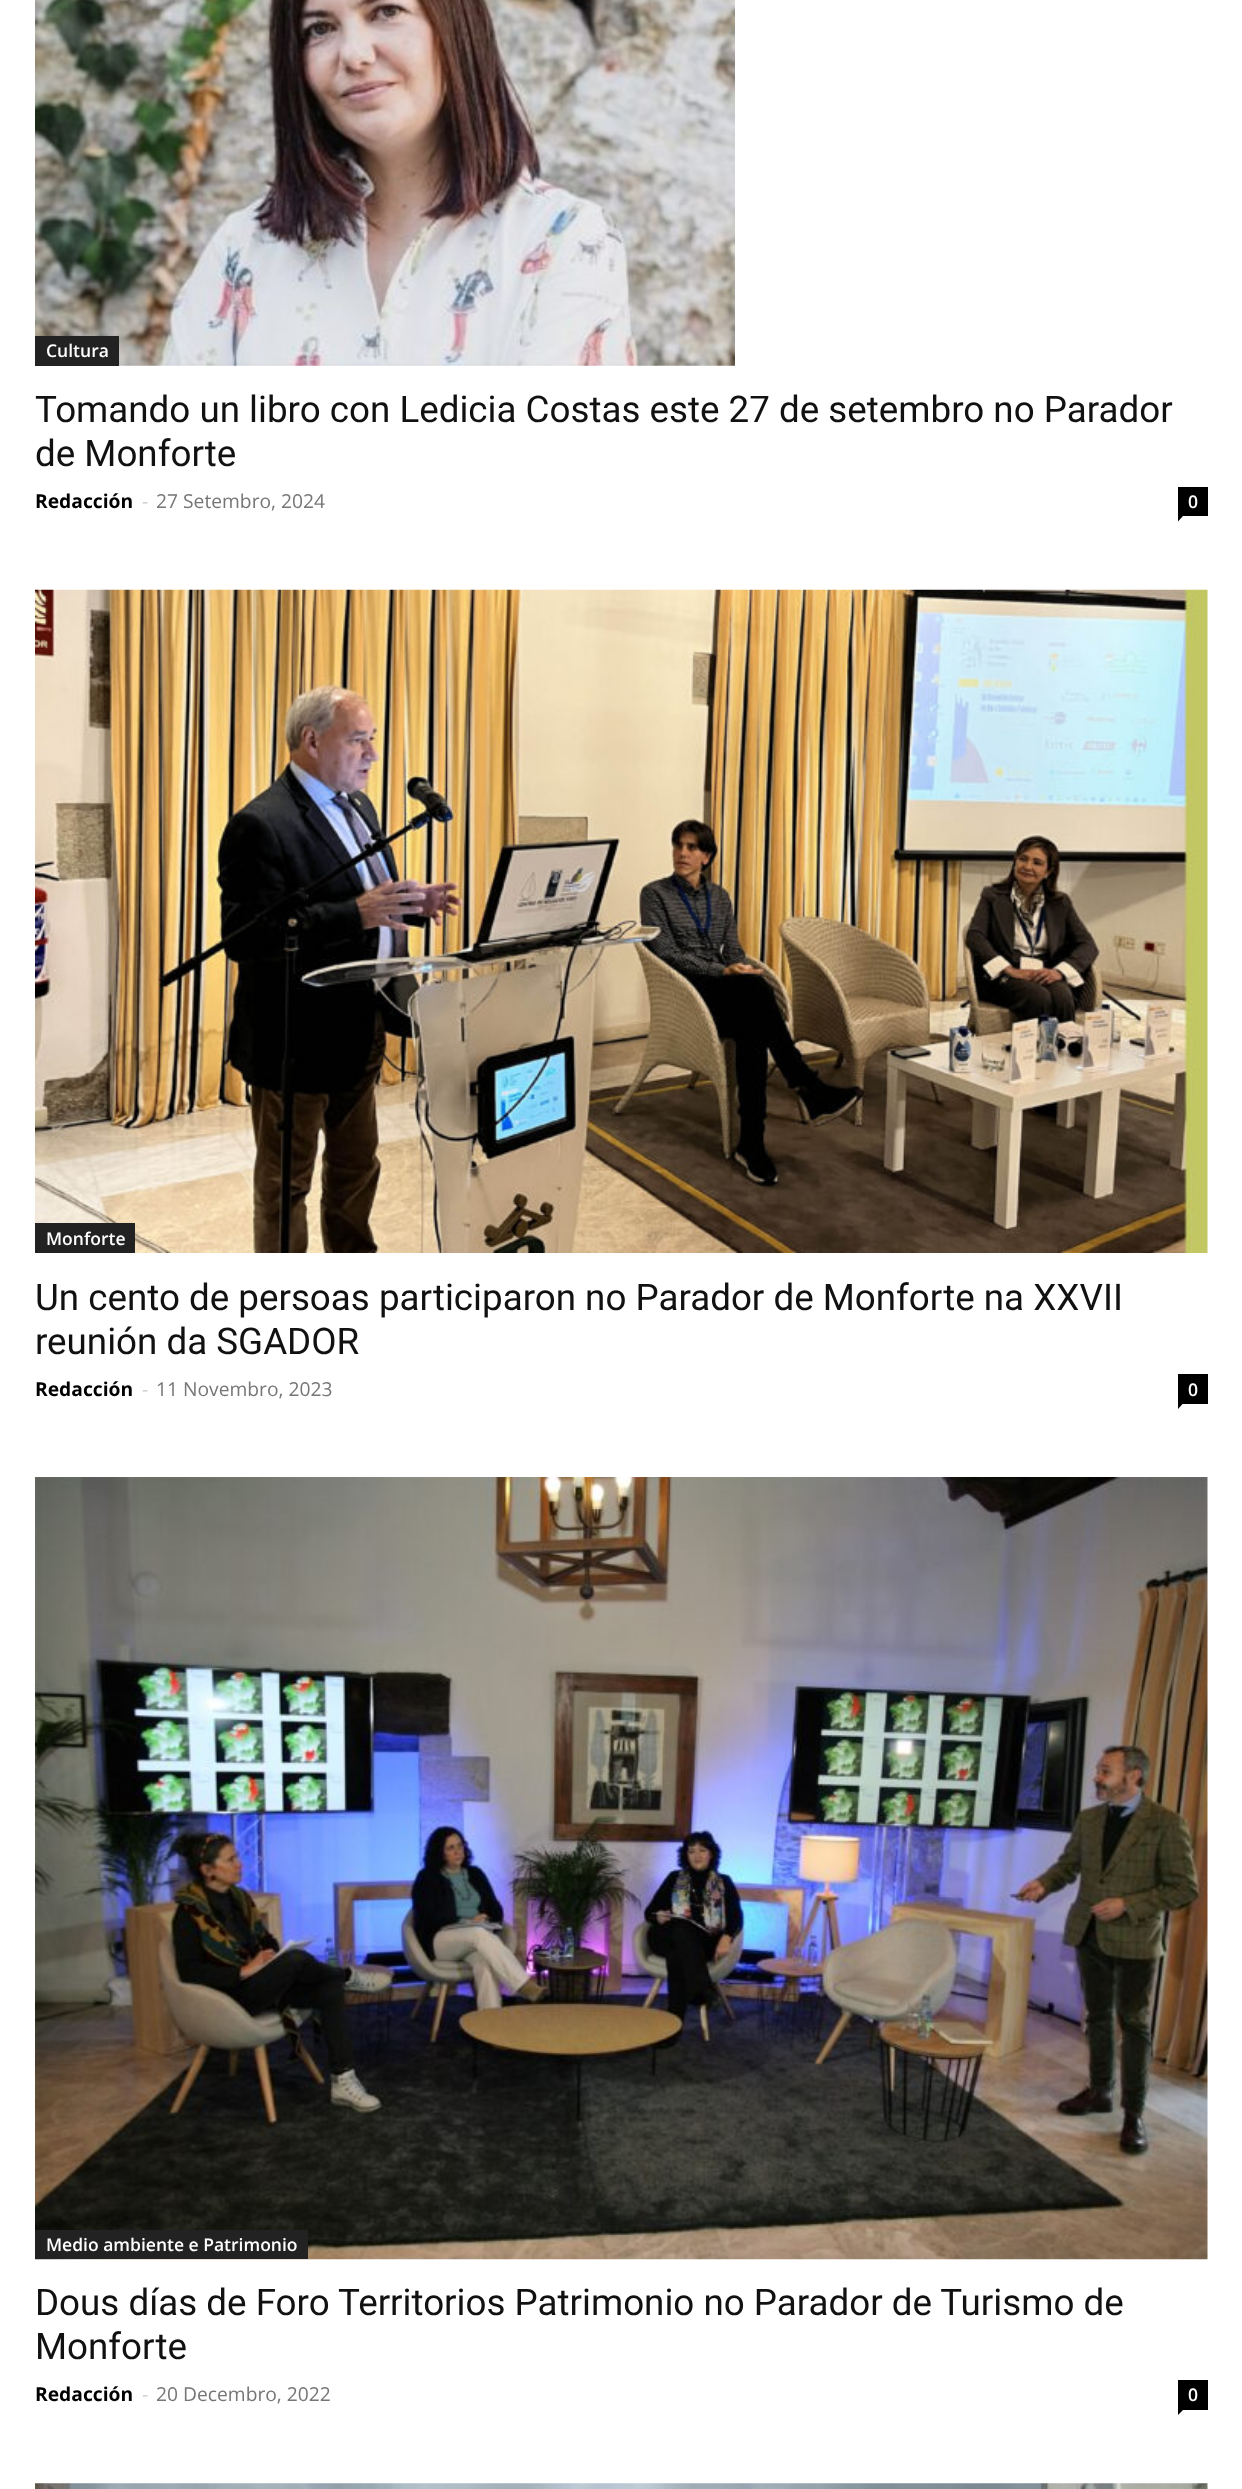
<svg xmlns="http://www.w3.org/2000/svg" width="1242" height="2489" viewBox="0 0 1242 2489">
  <style>
    .t1 { font: 600 17.5px Open Sans; fill: #fff; }
    .t2 { font: 36.75px Roboto; fill: #111; }
    .t3 { font: bold 19.25px Open Sans; fill: #000; }
    .t4 { font: 19.25px Open Sans; fill: #ccc; }
    .t5 { font: 19.25px Open Sans; fill: #767676; }
  </style>
  <rect width="100%" height="100%" fill="#fff"/>
  <image x="35" y="0" width="700" height="366" href="images/1.png"/>
  <rect x="35" y="336" width="84" height="30" fill="#222"/>
  <text x="46" y="357" class="t1">Cultura</text>
  <text x="35" y="422" class="t2">Tomando un libro con Ledicia Costas este 27 de setembro no Parador</text>
  <text x="35" y="466" class="t2">de Monforte</text>
  <text x="35" y="508" class="t3">Redacción</text>
  <text x="142" y="508" class="t4">-</text>
  <text x="156" y="508" class="t5">27 Setembro, 2024</text>
  <rect x="1178" y="487" width="30" height="29" fill="#000"/>
  <text x="1188" y="508" class="t1">0</text>
  <path d="M1178 516H1183L1178 521.5Z" fill="#000"/>
  <image x="35" y="589" width="1173" height="664" href="images/2.png"/>
  <rect x="35" y="1223" width="100" height="30" fill="#222"/>
  <text x="46" y="1245" class="t1">Monforte</text>
  <text x="35" y="1310" class="t2">Un cento de persoas participaron no Parador de Monforte na XXVII</text>
  <text x="35" y="1354" class="t2">reunión da SGADOR</text>
  <text x="35" y="1396" class="t3">Redacción</text>
  <text x="142" y="1396" class="t4">-</text>
  <text x="156" y="1396" class="t5">11 Novembro, 2023</text>
  <rect x="1178" y="1374" width="30" height="30" fill="#000"/>
  <text x="1188" y="1396" class="t1">0</text>
  <path d="M1178 1403.5H1183L1178 1409Z" fill="#000"/>
  <image x="35" y="1477" width="1173" height="783" href="images/3.png"/>
  <rect x="35" y="2230" width="273" height="29" fill="#222"/>
  <text x="46" y="2251" class="t1">Medio ambiente e Patrimonio</text>
  <text x="35" y="2315" class="t2">Dous días de Foro Territorios Patrimonio no Parador de Turismo de</text>
  <text x="35" y="2359" class="t2">Monforte</text>
  <text x="35" y="2401" class="t3">Redacción</text>
  <text x="142" y="2401" class="t4">-</text>
  <text x="156" y="2401" class="t5">20 Decembro, 2022</text>
  <rect x="1178" y="2380" width="30" height="30" fill="#000"/>
  <text x="1188" y="2401" class="t1">0</text>
  <path d="M1178 2410H1183L1178 2415Z" fill="#000"/>
  <image x="35" y="2483" width="1173" height="6" href="images/4.png"/>
</svg>
